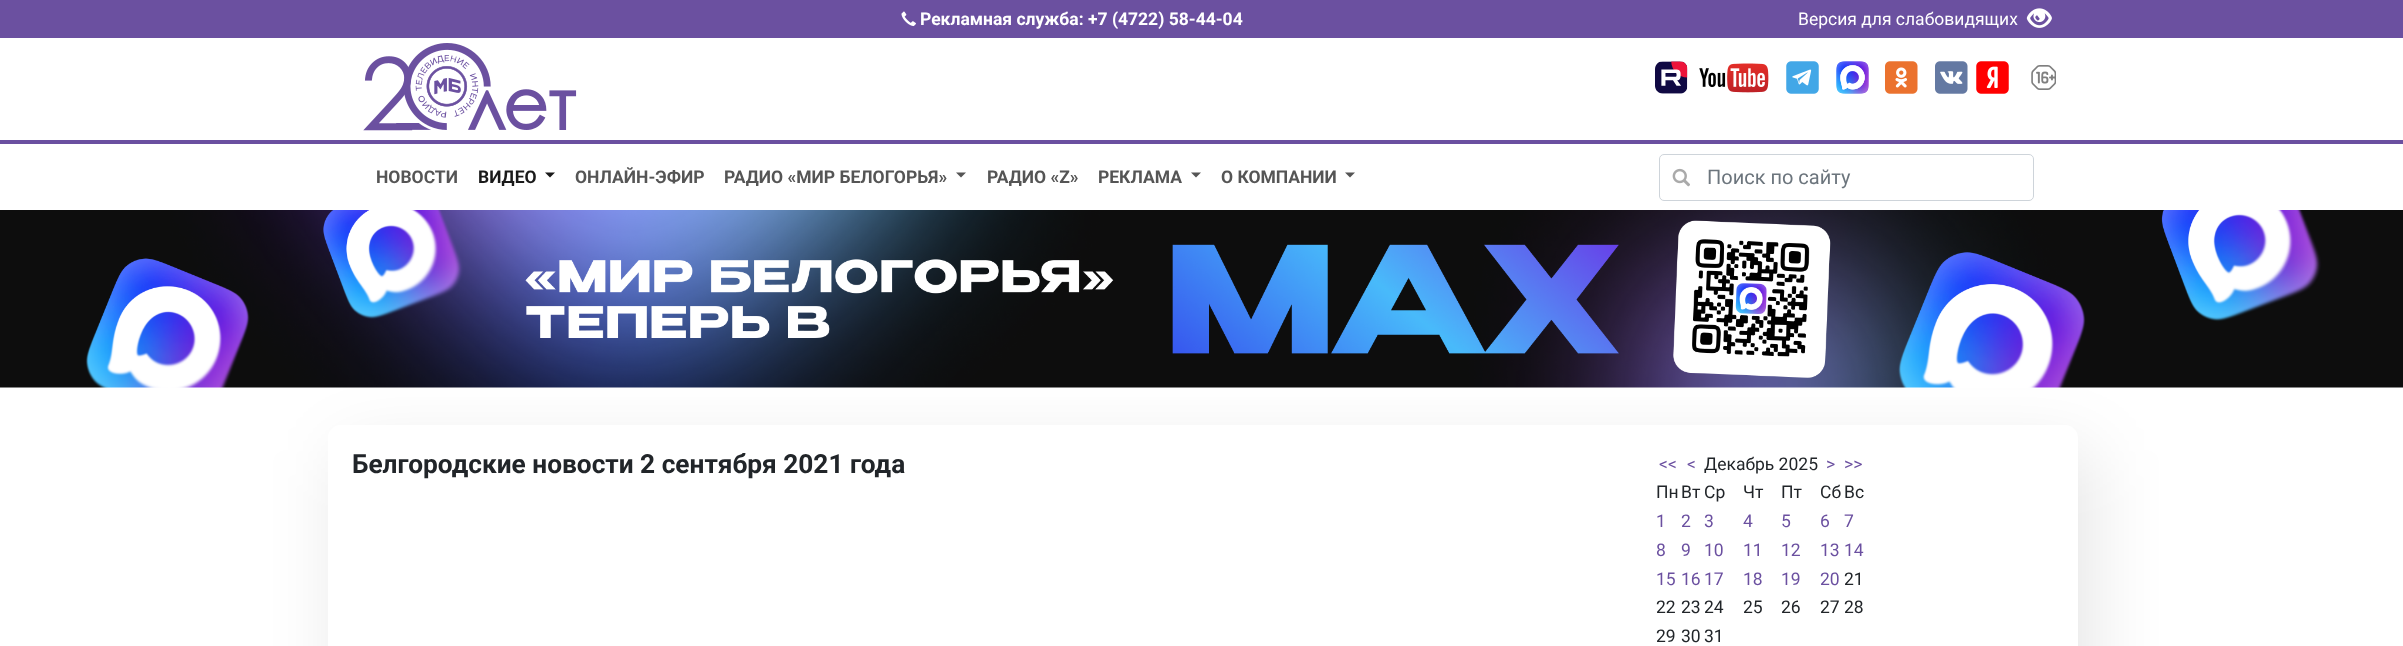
<svg xmlns="http://www.w3.org/2000/svg" width="2403" height="646" viewBox="0 0 2403 646">
  <style>
    .t1 { font: bold 17.5px Roboto; fill: #fff; }
    .t2 { font: 17.5px Roboto; fill: #fff; }
    .t3 { font: bold 17.5px Roboto; fill: #555; }
    .t4 { font: bold 17.5px Roboto; fill: #1a1a1a; }
    .t5 { font: 20px Roboto; fill: #6c757d; }
    .t6 { font: bold 26.25px Roboto; fill: #212529; }
    .t7 { font: 17.5px Roboto; fill: #6b50a0; }
    .t8 { font: 17.5px Roboto; fill: #212529; }
  </style>
  <defs>
    <clipPath id="clip1"><path d="M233 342H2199V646H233ZM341 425H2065C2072 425 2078 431 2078 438V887C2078 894 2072 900 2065 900H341C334 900 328 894 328 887V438C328 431 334 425 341 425Z" clip-rule="evenodd"/></clipPath>
  </defs>
  <rect width="100%" height="100%" fill="#fff"/>
  <rect x="0" y="0" width="2403" height="38" fill="#6b50a0"/>
  <image x="901" y="11" width="15" height="16" href="images/1.png"/>
  <text x="920" y="25" class="t1">Рекламная служба: +7 (4722) 58-44-04</text>
  <text x="1798" y="25" class="t2">Версия для слабовидящих</text>
  <image x="2026" y="8" width="26" height="20" href="images/2.png"/>
  <image x="363" y="43" width="214" height="88" href="images/3.png"/>
  <image x="1655" y="61" width="33" height="33" href="images/4.png"/>
  <image x="1699" y="63" width="70" height="30" href="images/5.png"/>
  <image x="1786" y="61" width="33" height="33" href="images/6.png"/>
  <image x="1836" y="61" width="33" height="33" href="images/7.png"/>
  <image x="1885" y="61" width="33" height="33" href="images/8.png"/>
  <image x="1935" y="61" width="33" height="33" href="images/9.png"/>
  <image x="1976" y="61" width="33" height="33" href="images/10.png"/>
  <image x="2031" y="65" width="25" height="25" href="images/11.png"/>
  <rect x="0" y="140" width="2403" height="4" fill="#6b50a0"/>
  <text x="376" y="183" class="t3">НОВОСТИ</text>
  <text x="478" y="183" class="t4">ВИДЕО</text>
  <path d="M545 172.5H555L550 177.5Z" fill="#1a1a1a"/>
  <text x="575" y="183" class="t3">ОНЛАЙН-ЭФИР</text>
  <text x="724" y="183" class="t3">РАДИО «МИР БЕЛОГОРЬЯ»</text>
  <path d="M956 172.5H966L961 177.5Z" fill="#555"/>
  <text x="987" y="183" class="t3">РАДИО «Z»</text>
  <text x="1098" y="183" class="t3">РЕКЛАМА</text>
  <path d="M1191 172.5H1201L1196 177.5Z" fill="#555"/>
  <text x="1221" y="183" class="t3">О КОМПАНИИ</text>
  <path d="M1345 172.5H1355L1350 177.5Z" fill="#555"/>
  <rect x="1659.5" y="154.5" width="374" height="46" rx="4.5" fill="none" stroke="#ced4da"/>
  <image x="1672" y="168" width="18" height="19" href="images/12.png"/>
  <text x="1707" y="184" class="t5">Поиск по сайту</text>
  <g clip-path="url(#clip1)">
    <rect x="341" y="450" width="1750" height="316" rx="13" fill="#0000001a" filter="blur(35.5px)"/>
  </g>
  <image x="0" y="210" width="2403" height="178" href="images/13.png"/>
  <text x="352" y="473" class="t6">Белгородские новости 2 сентября 2021 года</text>
  <text x="1659" y="470" class="t7">&lt;&lt;</text>
  <text x="1687" y="470" class="t7">&lt;</text>
  <text x="1704" y="470" class="t8">Декабрь 2025</text>
  <text x="1826" y="470" class="t7">&gt;</text>
  <text x="1844" y="470" class="t7">&gt;&gt;</text>
  <text x="1656" y="498" class="t8">Пн</text>
  <text x="1681" y="498" class="t8">Вт</text>
  <text x="1704" y="498" class="t8">Ср</text>
  <text x="1743" y="498" class="t8">Чт</text>
  <text x="1781" y="498" class="t8">Пт</text>
  <text x="1820" y="498" class="t8">Сб</text>
  <text x="1844" y="498" class="t8">Вс</text>
  <text x="1656" y="527" class="t7">1</text>
  <text x="1681" y="527" class="t7">2</text>
  <text x="1704" y="527" class="t7">3</text>
  <text x="1743" y="527" class="t7">4</text>
  <text x="1781" y="527" class="t7">5</text>
  <text x="1820" y="527" class="t7">6</text>
  <text x="1844" y="527" class="t7">7</text>
  <text x="1656" y="556" class="t7">8</text>
  <text x="1681" y="556" class="t7">9</text>
  <text x="1704" y="556" class="t7">10</text>
  <text x="1743" y="556" class="t7">11</text>
  <text x="1781" y="556" class="t7">12</text>
  <text x="1820" y="556" class="t7">13</text>
  <text x="1844" y="556" class="t7">14</text>
  <text x="1656" y="585" class="t7">15</text>
  <text x="1681" y="585" class="t7">16</text>
  <text x="1704" y="585" class="t7">17</text>
  <text x="1743" y="585" class="t7">18</text>
  <text x="1781" y="585" class="t7">19</text>
  <text x="1820" y="585" class="t7">20</text>
  <text x="1844" y="585" class="t8">21</text>
  <text x="1656" y="613" class="t8">22</text>
  <text x="1681" y="613" class="t8">23</text>
  <text x="1704" y="613" class="t8">24</text>
  <text x="1743" y="613" class="t8">25</text>
  <text x="1781" y="613" class="t8">26</text>
  <text x="1820" y="613" class="t8">27</text>
  <text x="1844" y="613" class="t8">28</text>
  <text x="1656" y="642" class="t8">29</text>
  <text x="1681" y="642" class="t8">30</text>
  <text x="1704" y="642" class="t8">31</text>
</svg>
